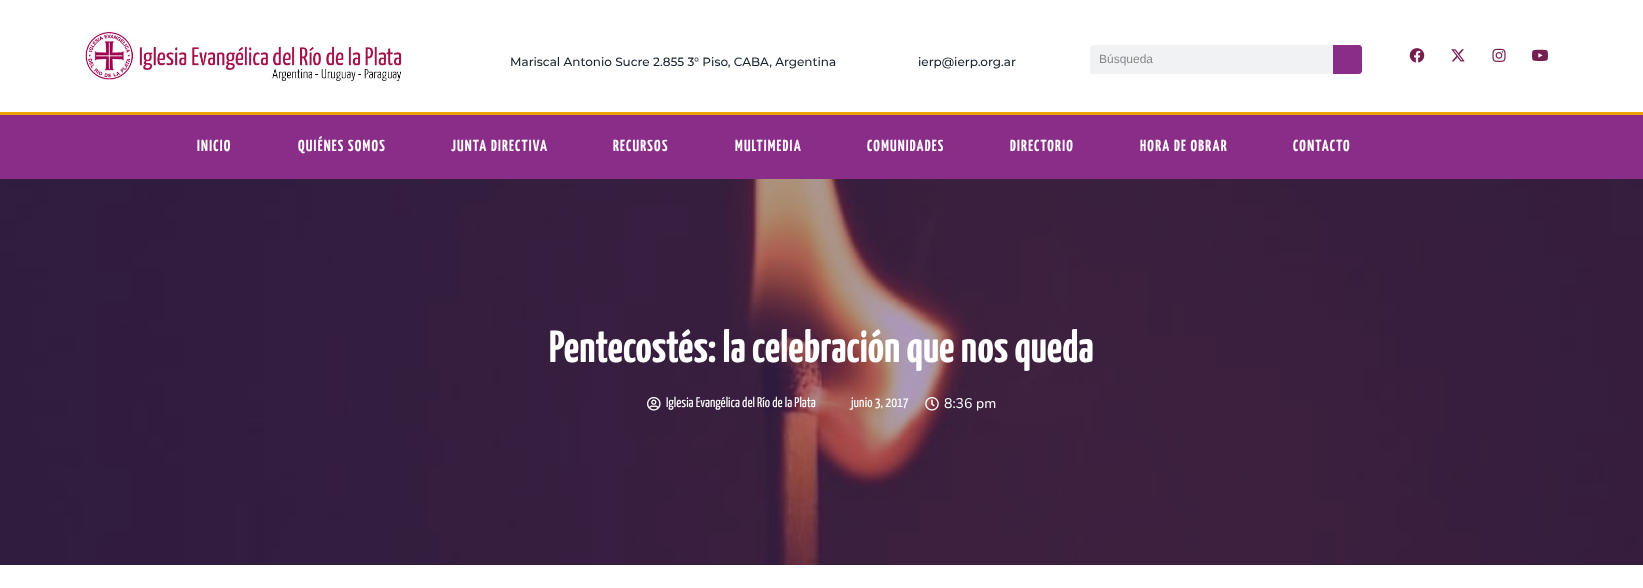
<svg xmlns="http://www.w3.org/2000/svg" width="1643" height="588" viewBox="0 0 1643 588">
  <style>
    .t1 { font: 500 12px Montserrat; fill: #192431; }
    .t2 { font: 12px Liberation Sans; fill: #868a8e; }
    .t3 { font: bold 16px Yanone Kaffeesatz; letter-spacing: 1.25px; fill: #fff; }
    .t4 { font: bold 45px Yanone Kaffeesatz; fill: #fff; }
    .t5 { font: 14px Yanone Kaffeesatz; fill: #fff; }
    .t6 { font: 14px Nunito Sans; fill: #fff; }
  </style>
  <rect width="100%" height="100%" fill="#fff"/>
  <image x="83" y="30" width="319" height="51" href="images/1.png"/>
  <text x="510" y="66" class="t1">Mariscal Antonio Sucre 2.855 3° Piso, CABA, Argentina</text>
  <text x="918" y="66" class="t1">ierp@ierp.org.ar</text>
  <rect x="1090" y="45" width="272" height="29" rx="3" fill="#f1f2f3"/>
  <text x="1099" y="63" class="t2">Búsqueda</text>
  <path d="M1333 45H1359C1360.5 45 1362 46.5 1362 48V71C1362 72.5 1360.5 74 1359 74H1333Z" fill="#8a2d88"/>
  <image x="1409" y="48" width="16" height="15" href="images/2.png"/>
  <image x="1451" y="49" width="14" height="13" href="images/3.png"/>
  <image x="1492" y="48" width="14" height="14" href="images/4.png"/>
  <image x="1532" y="49" width="16" height="12" href="images/5.png"/>
  <rect x="0" y="115" width="1643" height="64" fill="#8a2d88"/>
  <rect x="0" y="112" width="1643" height="3" fill="#efa208"/>
  <text x="197" y="151" class="t3">INICIO</text>
  <text x="298" y="151" class="t3">QUIÉNES SOMOS</text>
  <text x="451" y="151" class="t3">JUNTA DIRECTIVA</text>
  <text x="613" y="151" class="t3">RECURSOS</text>
  <text x="735" y="151" class="t3">MULTIMEDIA</text>
  <text x="867" y="151" class="t3">COMUNIDADES</text>
  <text x="1010" y="151" class="t3">DIRECTORIO</text>
  <text x="1140" y="151" class="t3">HORA DE OBRAR</text>
  <text x="1293" y="151" class="t3">CONTACTO</text>
  <image x="0" y="179" width="1643" height="386" href="images/6.png"/>
  <text x="549" y="362" class="t4">Pentecostés: la celebración que nos queda</text>
  <image x="647" y="397" width="14" height="14" href="images/7.png"/>
  <text x="666" y="407" class="t5">Iglesia Evangélica del Río de la Plata</text>
  <text x="851" y="407" class="t5">junio 3, 2017</text>
  <image x="925" y="397" width="14" height="14" href="images/8.png"/>
  <text x="944" y="408" class="t6">8:36 pm</text>
</svg>
